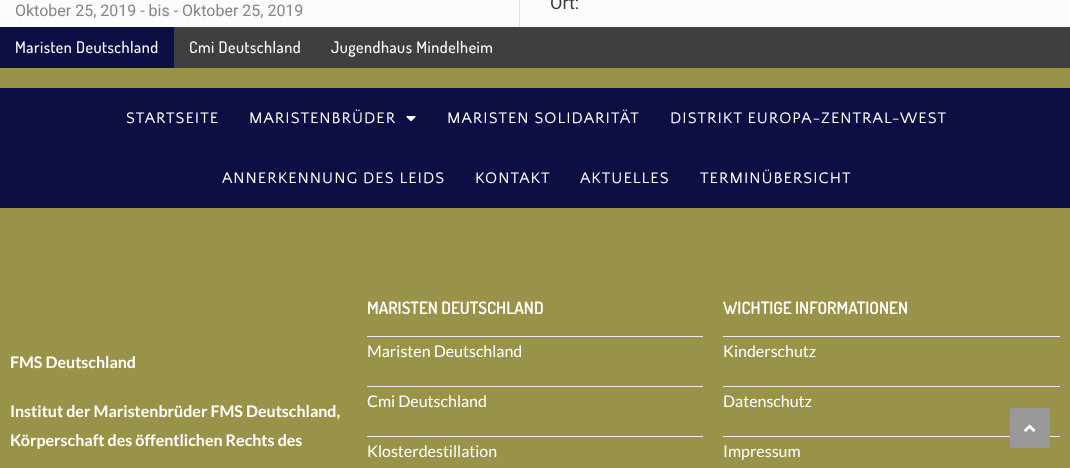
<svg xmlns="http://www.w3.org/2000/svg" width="1070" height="468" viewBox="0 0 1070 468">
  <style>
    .t1 { font: 16px Roboto; fill: #868686; }
    .t2 { font: 18px Roboto; fill: #363e40; }
    .t3 { font: 500 16px Dosis; letter-spacing: 0.5px; fill: #fff; }
    .t4 { font: 16px Quattrocento Sans; letter-spacing: 1px; fill: #fff; }
    .t5 { font: bold 16px Lato; fill: #fff; }
    .t6 { font: 600 17px Dosis; fill: #fff; }
    .t7 { font: 16px Lato; fill: #fff; }
  </style>
  <rect width="100%" height="100%" fill="#fcfcfc"/>
  <rect x="519" y="0" width="1" height="27" fill="#e1e1e1"/>
  <text x="15" y="16" class="t1">Oktober 25, 2019 - bis - Oktober 25, 2019</text>
  <text x="550" y="9" class="t2">Ort:</text>
  <rect x="0" y="68" width="1070" height="20" fill="#999249"/>
  <rect x="174" y="27" width="896" height="41" fill="#3f3f3f"/>
  <rect x="0" y="27" width="174" height="41" fill="#0d0f44"/>
  <text x="15" y="53" class="t3">Maristen Deutschland</text>
  <text x="189" y="53" class="t3">Cmi Deutschland</text>
  <text x="331" y="53" class="t3">Jugendhaus Mindelheim</text>
  <rect x="0" y="88" width="1070" height="120" fill="#0d0f44"/>
  <text x="126" y="123" class="t4">STARTSEITE</text>
  <text x="249" y="123" class="t4">MARISTENBRÜDER</text>
  <image x="406" y="116" width="10" height="6" href="images/1.png"/>
  <text x="447" y="123" class="t4">MARISTEN SOLIDARITÄT</text>
  <text x="670" y="123" class="t4">DISTRIKT EUROPA-ZENTRAL-WEST</text>
  <text x="222" y="183" class="t4">ANNERKENNUNG DES LEIDS</text>
  <text x="475" y="183" class="t4">KONTAKT</text>
  <text x="580" y="183" class="t4">AKTUELLES</text>
  <text x="700" y="183" class="t4">TERMINÜBERSICHT</text>
  <rect x="0" y="208" width="1070" height="260" fill="#999249"/>
  <text x="10" y="368" class="t5">FMS Deutschland</text>
  <text x="10" y="417" class="t5">Institut der Maristenbrüder FMS Deutschland,</text>
  <text x="10" y="446" class="t5">Körperschaft des öffentlichen Rechts des</text>
  <text x="367" y="314" class="t6">MARISTEN DEUTSCHLAND</text>
  <rect x="367" y="336" width="336" height="1" fill="#e9e9e9"/>
  <text x="367" y="357" class="t7">Maristen Deutschland</text>
  <rect x="367" y="386" width="336" height="1" fill="#e9e9e9"/>
  <text x="367" y="407" class="t7">Cmi Deutschland</text>
  <rect x="367" y="436" width="336" height="1" fill="#e9e9e9"/>
  <text x="367" y="457" class="t7">Klosterdestillation</text>
  <text x="723" y="314" class="t6">WICHTIGE INFORMATIONEN</text>
  <rect x="723" y="336" width="337" height="1" fill="#e9e9e9"/>
  <text x="723" y="357" class="t7">Kinderschutz</text>
  <rect x="723" y="386" width="337" height="1" fill="#e9e9e9"/>
  <text x="723" y="407" class="t7">Datenschutz</text>
  <rect x="723" y="436" width="337" height="1" fill="#e9e9e9"/>
  <text x="723" y="457" class="t7">Impressum</text>
  <rect x="1010" y="408" width="40" height="40" rx="2" fill="#999"/>
  <image x="1024" y="424" width="12" height="8" href="images/2.png"/>
</svg>
